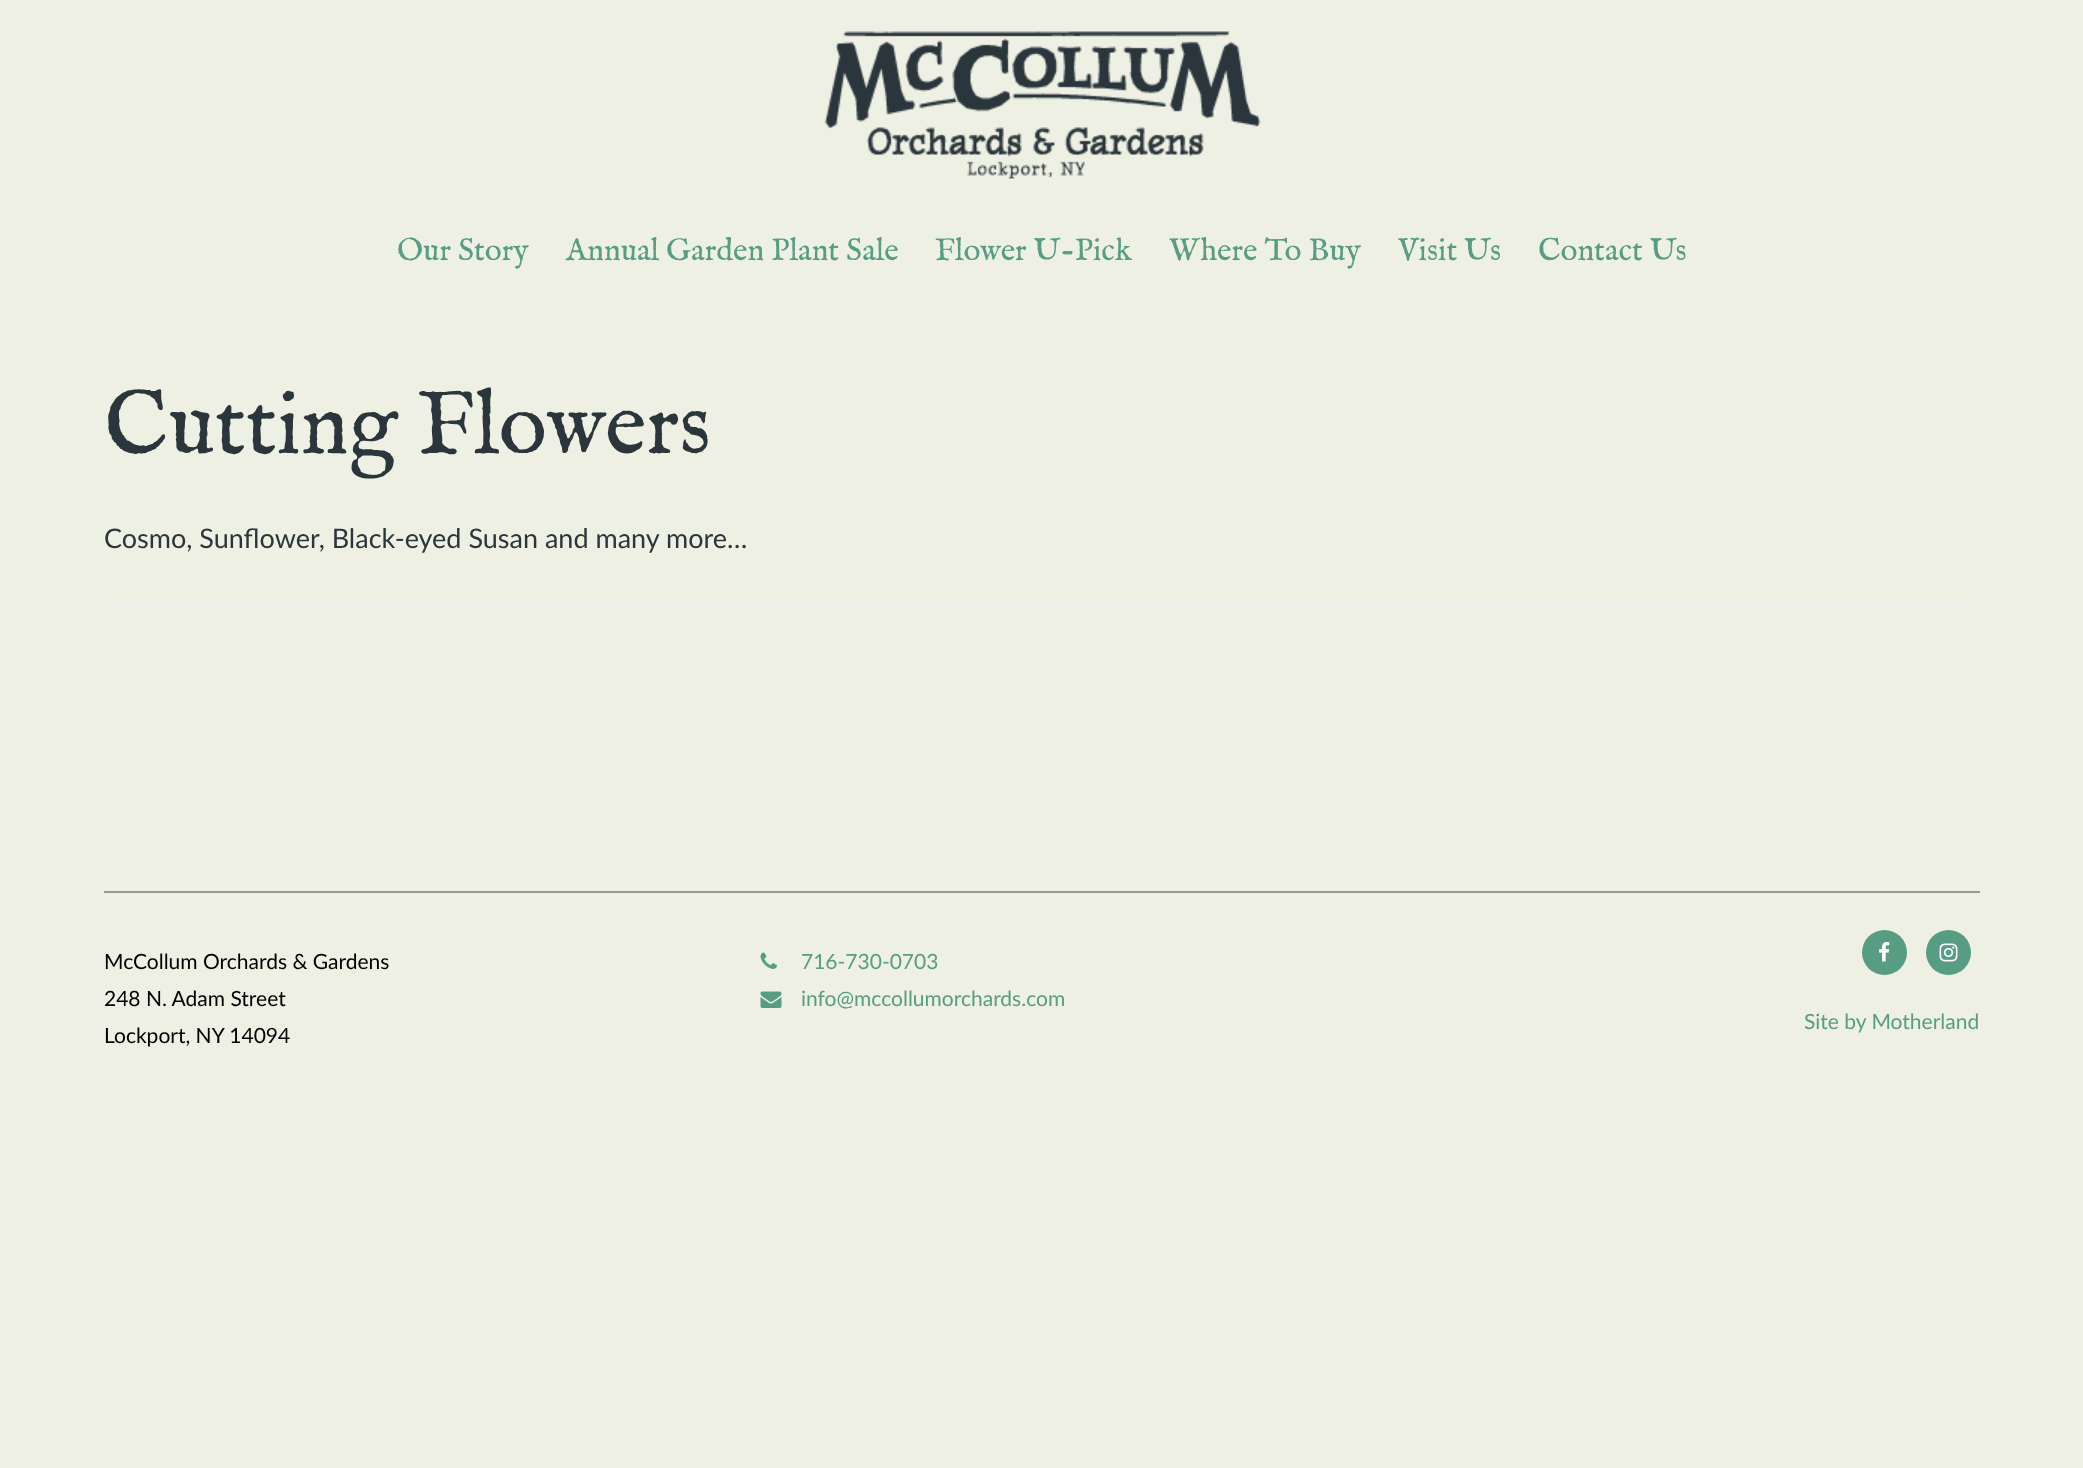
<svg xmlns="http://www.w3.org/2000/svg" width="2083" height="1468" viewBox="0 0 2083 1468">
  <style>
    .t1 { font: 31.5px IM FELL English; fill: #579d84; }
    .t2 { font: 90px IM FELL English; fill: #2b363c; }
    .t3 { font: 27px Lato; fill: #2b363c; }
    .t4 { font: 21px Lato; fill: #000; }
    .t5 { font: 21px Lato; fill: #579d84; }
  </style>
  <rect width="100%" height="100%" fill="#eef0e3"/>
  <image x="824" y="31" width="437" height="148" href="images/1.png"/>
  <text x="397" y="260" class="t1">Our Story</text>
  <text x="566" y="260" class="t1">Annual Garden Plant Sale</text>
  <text x="935" y="260" class="t1">Flower U-Pick</text>
  <text x="1169" y="260" class="t1">Where To Buy</text>
  <text x="1398" y="260" class="t1">Visit Us</text>
  <text x="1538" y="260" class="t1">Contact Us</text>
  <text x="104" y="453" class="t2">Cutting Flowers</text>
  <text x="104" y="548" class="t3">Cosmo, Sunflower, Black-eyed Susan and many more…</text>
  <rect x="104" y="606" width="1876" height="2" fill="#ededed"/>
  <rect x="104" y="891" width="1876" height="2" fill="#999"/>
  <text x="104" y="969" class="t4">McCollum Orchards &amp; Gardens</text>
  <text x="104" y="1006" class="t4">248 N. Adam Street</text>
  <text x="104" y="1043" class="t4">Lockport, NY 14094</text>
  <image x="760" y="952" width="17" height="17" href="images/2.png"/>
  <text x="801" y="969" class="t5">716-730-0703</text>
  <image x="760" y="991" width="22" height="17" href="images/3.png"/>
  <text x="801" y="1006" class="t5">info@mccollumorchards.com</text>
  <circle cx="1884.5" cy="952.5" r="22.5" fill="#579d84"/>
  <image x="1879" y="942" width="11" height="20" href="images/4.png"/>
  <circle cx="1948.5" cy="952.5" r="22.5" fill="#579d84"/>
  <image x="1939" y="943" width="19" height="19" href="images/5.png"/>
  <text x="1804" y="1029" class="t5">Site by Motherland</text>
</svg>
